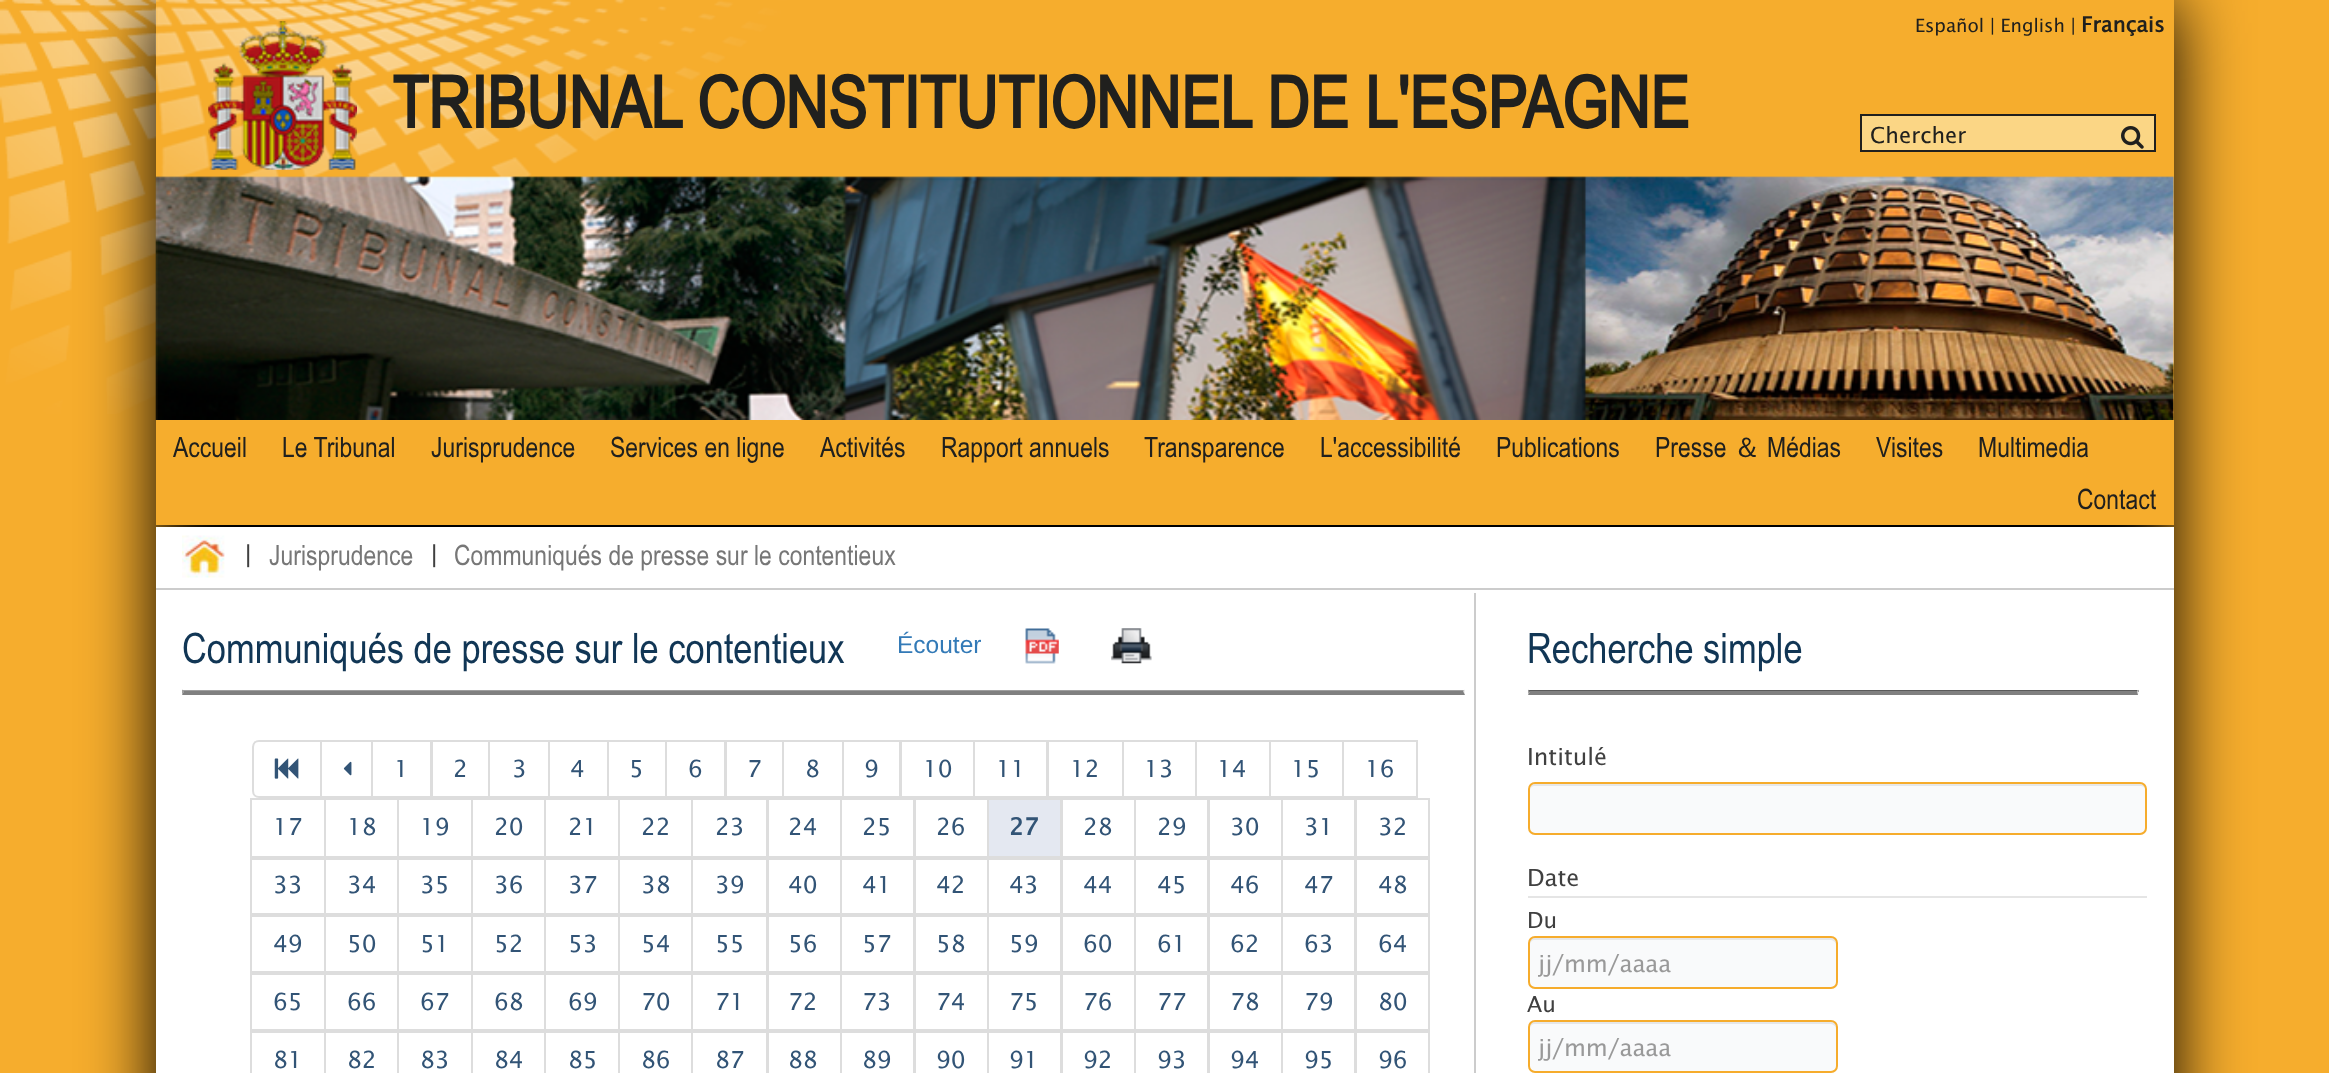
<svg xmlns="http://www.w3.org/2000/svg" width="2329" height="1073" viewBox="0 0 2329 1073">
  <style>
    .t1 { font: 18.4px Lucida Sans; fill: #20201e; }
    .t2 { font: bold 21px Lucida Sans; fill: #20201e; }
    .t3 { font: bold 71.75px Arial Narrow; fill: #20201e; }
    .t4 { font: 22px Lucida Sans; fill: #20201e; }
    .t5 { font: 28px Arial Narrow; fill: #20201e; }
    .t6 { font: 500 28px WenQuanYi Zen Hei; fill: #20201e; }
    .t7 { font: 24.5px Liberation Sans; fill: #404040; }
    .t8 { font: 28px Arial Narrow; fill: #777; }
    .t9 { font: 42px Arial Narrow; fill: #113655; }
    .t10 { font: 24.5px Liberation Sans; fill: #337ab7; }
    .t11 { font: 23.5px Lucida Sans; fill: #325476; }
    .t12 { font: bold 23.5px Lucida Sans; fill: #325476; }
    .t13 { font: 23.5px Lucida Sans; fill: #404040; }
    .t14 { font: 22px Lucida Sans; fill: #404040; }
    .t15 { font: 23.5px Lucida Sans; fill: #999; }
  </style>
  <defs>
    <clipPath id="clip1"><rect x="1538" y="949" width="289" height="28"/></clipPath>
    <clipPath id="clip2"><rect x="1538" y="1033" width="289" height="28"/></clipPath>
  </defs>
  <rect width="100%" height="100%" fill="#f6ad2d"/>
  <image x="0" y="0" width="156" height="414" href="images/1.png"/>
  <rect x="156" y="0" width="2018" height="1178" fill="#000" filter="blur(35px)"/>
  <rect x="156" y="0" width="2018" height="525" fill="#f6ad2d"/>
  <image x="155" y="0" width="2019" height="420" href="images/2.png"/>
  <text x="1915" y="32" class="t1">Español | English |</text>
  <text x="2081" y="32" class="t2">Français</text>
  <image x="208" y="21" width="149" height="149" href="images/3.png"/>
  <text x="392" y="128" class="t3">TRIBUNAL CONSTITUTIONNEL DE L'ESPAGNE</text>
  <rect x="1861" y="115" width="294" height="36" fill="#fbd685" stroke="#20201e" stroke-width="2"/>
  <text x="1870" y="143" class="t4">Chercher</text>
  <image x="2121" y="126" width="23" height="23" href="images/4.png"/>
  <text x="173" y="457" class="t5">Accueil</text>
  <text x="282" y="457" class="t5">Le Tribunal</text>
  <text x="431" y="457" class="t5">Jurisprudence</text>
  <text x="610" y="457" class="t5">Services en ligne</text>
  <text x="820" y="457" class="t5">Activités</text>
  <text x="941" y="457" class="t5">Rapport annuels</text>
  <text x="1144" y="457" class="t5">Transparence</text>
  <text x="1320" y="457" class="t5">L'accessibilité</text>
  <text x="1496" y="457" class="t5">Publications</text>
  <text x="1655" y="457" class="t5">Presse</text>
  <text x="1733" y="457" class="t6">＆</text>
  <text x="1767" y="457" class="t5">Médias</text>
  <text x="1876" y="457" class="t5">Visites</text>
  <text x="1978" y="457" class="t5">Multimedia</text>
  <text x="2077" y="509" class="t5">Contact</text>
  <rect x="156" y="527" width="2018" height="61" fill="#fff"/>
  <image x="182" y="535" width="43" height="43" href="images/5.png"/>
  <text x="245" y="562" class="t7">|</text>
  <text x="269" y="565" class="t8">Jurisprudence</text>
  <text x="431" y="562" class="t7">|</text>
  <text x="454" y="565" class="t8">Communiqués de presse sur le contentieux</text>
  <rect x="156" y="590" width="2018" height="483" fill="#fff"/>
  <rect x="156" y="588" width="2018" height="2" fill="#ccc"/>
  <rect x="1474" y="593" width="2" height="480" fill="#ccc"/>
  <text x="182" y="663" class="t9">Communiqués de presse sur le contentieux</text>
  <text x="897" y="653" class="t10">Écouter</text>
  <image x="1025" y="628" width="34" height="36" href="images/6.png"/>
  <image x="1111" y="628" width="41" height="36" href="images/7.png"/>
  <rect x="182" y="690" width="1283" height="2" fill="#9f9f9f"/>
  <path d="M1465 689.5V695L1463 691Z" fill="#eee"/>
  <path d="M1465 695H182L184 691H1463Z" fill="#808080"/>
  <path d="M182 695V689.5L184 691Z" fill="#9f9f9f"/>
  <path d="M259 741H321V797H259C255.5 797 253 794.5 253 791V747C253 743.5 255.5 741 259 741Z" fill="none" stroke="#ddd" stroke-width="2"/>
  <image x="274" y="758" width="25" height="21" href="images/8.png"/>
  <rect x="321" y="741" width="51" height="56" fill="none" stroke="#ddd" stroke-width="2"/>
  <image x="343" y="761" width="9" height="15" href="images/9.png"/>
  <rect x="372" y="741" width="59" height="56" fill="none" stroke="#ddd" stroke-width="2"/>
  <text x="394" y="777" class="t11">1</text>
  <rect x="432" y="741" width="57" height="56" fill="none" stroke="#ddd" stroke-width="2"/>
  <text x="453" y="777" class="t11">2</text>
  <rect x="489" y="741" width="60" height="56" fill="none" stroke="#ddd" stroke-width="2"/>
  <text x="512" y="777" class="t11">3</text>
  <rect x="549" y="741" width="59" height="56" fill="none" stroke="#ddd" stroke-width="2"/>
  <text x="570" y="777" class="t11">4</text>
  <rect x="608" y="741" width="58" height="56" fill="none" stroke="#ddd" stroke-width="2"/>
  <text x="629" y="777" class="t11">5</text>
  <rect x="666" y="741" width="59" height="56" fill="none" stroke="#ddd" stroke-width="2"/>
  <text x="688" y="777" class="t11">6</text>
  <rect x="726" y="741" width="57" height="56" fill="none" stroke="#ddd" stroke-width="2"/>
  <text x="747" y="777" class="t11">7</text>
  <rect x="783" y="741" width="60" height="56" fill="none" stroke="#ddd" stroke-width="2"/>
  <text x="805" y="777" class="t11">8</text>
  <rect x="843" y="741" width="57" height="56" fill="none" stroke="#ddd" stroke-width="2"/>
  <text x="864" y="777" class="t11">9</text>
  <rect x="901" y="741" width="73" height="56" fill="none" stroke="#ddd" stroke-width="2"/>
  <text x="923" y="777" class="t11">10</text>
  <rect x="974" y="741" width="73" height="56" fill="none" stroke="#ddd" stroke-width="2"/>
  <text x="996" y="777" class="t11">11</text>
  <rect x="1048" y="741" width="75" height="56" fill="none" stroke="#ddd" stroke-width="2"/>
  <text x="1070" y="777" class="t11">12</text>
  <rect x="1123" y="741" width="73" height="56" fill="none" stroke="#ddd" stroke-width="2"/>
  <text x="1144" y="777" class="t11">13</text>
  <rect x="1196" y="741" width="74" height="56" fill="none" stroke="#ddd" stroke-width="2"/>
  <text x="1217" y="777" class="t11">14</text>
  <rect x="1270" y="741" width="73" height="56" fill="none" stroke="#ddd" stroke-width="2"/>
  <text x="1291" y="777" class="t11">15</text>
  <rect x="1343" y="741" width="74" height="56" fill="none" stroke="#ddd" stroke-width="2"/>
  <text x="1365" y="777" class="t11">16</text>
  <rect x="251" y="799" width="74" height="58" fill="none" stroke="#ddd" stroke-width="2"/>
  <text x="273" y="835" class="t11">17</text>
  <rect x="325" y="799" width="73" height="58" fill="none" stroke="#ddd" stroke-width="2"/>
  <text x="347" y="835" class="t11">18</text>
  <rect x="398" y="799" width="74" height="58" fill="none" stroke="#ddd" stroke-width="2"/>
  <text x="420" y="835" class="t11">19</text>
  <rect x="472" y="799" width="73" height="58" fill="none" stroke="#ddd" stroke-width="2"/>
  <text x="494" y="835" class="t11">20</text>
  <rect x="545" y="799" width="74" height="58" fill="none" stroke="#ddd" stroke-width="2"/>
  <text x="568" y="835" class="t11">21</text>
  <rect x="619" y="799" width="73" height="58" fill="none" stroke="#ddd" stroke-width="2"/>
  <text x="641" y="835" class="t11">22</text>
  <rect x="692" y="799" width="75" height="58" fill="none" stroke="#ddd" stroke-width="2"/>
  <text x="715" y="835" class="t11">23</text>
  <rect x="768" y="799" width="73" height="58" fill="none" stroke="#ddd" stroke-width="2"/>
  <text x="788" y="835" class="t11">24</text>
  <rect x="841" y="799" width="73" height="58" fill="none" stroke="#ddd" stroke-width="2"/>
  <text x="862" y="835" class="t11">25</text>
  <rect x="915" y="799" width="73" height="58" fill="none" stroke="#ddd" stroke-width="2"/>
  <text x="936" y="835" class="t11">26</text>
  <rect x="988" y="799" width="73" height="58" fill="#e4e8f1" stroke="#ddd" stroke-width="2"/>
  <text x="1009" y="835" class="t12">27</text>
  <rect x="1062" y="799" width="73" height="58" fill="none" stroke="#ddd" stroke-width="2"/>
  <text x="1083" y="835" class="t11">28</text>
  <rect x="1135" y="799" width="73" height="58" fill="none" stroke="#ddd" stroke-width="2"/>
  <text x="1157" y="835" class="t11">29</text>
  <rect x="1209" y="799" width="73" height="58" fill="none" stroke="#ddd" stroke-width="2"/>
  <text x="1230" y="835" class="t11">30</text>
  <rect x="1282" y="799" width="73" height="58" fill="none" stroke="#ddd" stroke-width="2"/>
  <text x="1304" y="835" class="t11">31</text>
  <rect x="1356" y="799" width="73" height="58" fill="none" stroke="#ddd" stroke-width="2"/>
  <text x="1378" y="835" class="t11">32</text>
  <rect x="251" y="859" width="74" height="55" fill="none" stroke="#ddd" stroke-width="2"/>
  <text x="273" y="893" class="t11">33</text>
  <rect x="325" y="859" width="73" height="55" fill="none" stroke="#ddd" stroke-width="2"/>
  <text x="347" y="893" class="t11">34</text>
  <rect x="398" y="859" width="74" height="55" fill="none" stroke="#ddd" stroke-width="2"/>
  <text x="420" y="893" class="t11">35</text>
  <rect x="472" y="859" width="73" height="55" fill="none" stroke="#ddd" stroke-width="2"/>
  <text x="494" y="893" class="t11">36</text>
  <rect x="545" y="859" width="74" height="55" fill="none" stroke="#ddd" stroke-width="2"/>
  <text x="568" y="893" class="t11">37</text>
  <rect x="619" y="859" width="73" height="55" fill="none" stroke="#ddd" stroke-width="2"/>
  <text x="641" y="893" class="t11">38</text>
  <rect x="692" y="859" width="75" height="55" fill="none" stroke="#ddd" stroke-width="2"/>
  <text x="715" y="893" class="t11">39</text>
  <rect x="768" y="859" width="73" height="55" fill="none" stroke="#ddd" stroke-width="2"/>
  <text x="788" y="893" class="t11">40</text>
  <rect x="841" y="859" width="73" height="55" fill="none" stroke="#ddd" stroke-width="2"/>
  <text x="862" y="893" class="t11">41</text>
  <rect x="915" y="859" width="73" height="55" fill="none" stroke="#ddd" stroke-width="2"/>
  <text x="936" y="893" class="t11">42</text>
  <rect x="988" y="859" width="73" height="55" fill="none" stroke="#ddd" stroke-width="2"/>
  <text x="1009" y="893" class="t11">43</text>
  <rect x="1062" y="859" width="73" height="55" fill="none" stroke="#ddd" stroke-width="2"/>
  <text x="1083" y="893" class="t11">44</text>
  <rect x="1135" y="859" width="73" height="55" fill="none" stroke="#ddd" stroke-width="2"/>
  <text x="1157" y="893" class="t11">45</text>
  <rect x="1209" y="859" width="73" height="55" fill="none" stroke="#ddd" stroke-width="2"/>
  <text x="1230" y="893" class="t11">46</text>
  <rect x="1282" y="859" width="73" height="55" fill="none" stroke="#ddd" stroke-width="2"/>
  <text x="1304" y="893" class="t11">47</text>
  <rect x="1356" y="859" width="73" height="55" fill="none" stroke="#ddd" stroke-width="2"/>
  <text x="1378" y="893" class="t11">48</text>
  <rect x="251" y="916" width="74" height="56" fill="none" stroke="#ddd" stroke-width="2"/>
  <text x="273" y="952" class="t11">49</text>
  <rect x="325" y="916" width="73" height="56" fill="none" stroke="#ddd" stroke-width="2"/>
  <text x="347" y="952" class="t11">50</text>
  <rect x="398" y="916" width="74" height="56" fill="none" stroke="#ddd" stroke-width="2"/>
  <text x="420" y="952" class="t11">51</text>
  <rect x="472" y="916" width="73" height="56" fill="none" stroke="#ddd" stroke-width="2"/>
  <text x="494" y="952" class="t11">52</text>
  <rect x="545" y="916" width="74" height="56" fill="none" stroke="#ddd" stroke-width="2"/>
  <text x="568" y="952" class="t11">53</text>
  <rect x="619" y="916" width="73" height="56" fill="none" stroke="#ddd" stroke-width="2"/>
  <text x="641" y="952" class="t11">54</text>
  <rect x="692" y="916" width="75" height="56" fill="none" stroke="#ddd" stroke-width="2"/>
  <text x="715" y="952" class="t11">55</text>
  <rect x="768" y="916" width="73" height="56" fill="none" stroke="#ddd" stroke-width="2"/>
  <text x="788" y="952" class="t11">56</text>
  <rect x="841" y="916" width="73" height="56" fill="none" stroke="#ddd" stroke-width="2"/>
  <text x="862" y="952" class="t11">57</text>
  <rect x="915" y="916" width="73" height="56" fill="none" stroke="#ddd" stroke-width="2"/>
  <text x="936" y="952" class="t11">58</text>
  <rect x="988" y="916" width="73" height="56" fill="none" stroke="#ddd" stroke-width="2"/>
  <text x="1009" y="952" class="t11">59</text>
  <rect x="1062" y="916" width="73" height="56" fill="none" stroke="#ddd" stroke-width="2"/>
  <text x="1083" y="952" class="t11">60</text>
  <rect x="1135" y="916" width="73" height="56" fill="none" stroke="#ddd" stroke-width="2"/>
  <text x="1157" y="952" class="t11">61</text>
  <rect x="1209" y="916" width="73" height="56" fill="none" stroke="#ddd" stroke-width="2"/>
  <text x="1230" y="952" class="t11">62</text>
  <rect x="1282" y="916" width="73" height="56" fill="none" stroke="#ddd" stroke-width="2"/>
  <text x="1304" y="952" class="t11">63</text>
  <rect x="1356" y="916" width="73" height="56" fill="none" stroke="#ddd" stroke-width="2"/>
  <text x="1378" y="952" class="t11">64</text>
  <rect x="251" y="974" width="74" height="56" fill="none" stroke="#ddd" stroke-width="2"/>
  <text x="273" y="1010" class="t11">65</text>
  <rect x="325" y="974" width="73" height="56" fill="none" stroke="#ddd" stroke-width="2"/>
  <text x="347" y="1010" class="t11">66</text>
  <rect x="398" y="974" width="74" height="56" fill="none" stroke="#ddd" stroke-width="2"/>
  <text x="420" y="1010" class="t11">67</text>
  <rect x="472" y="974" width="73" height="56" fill="none" stroke="#ddd" stroke-width="2"/>
  <text x="494" y="1010" class="t11">68</text>
  <rect x="545" y="974" width="74" height="56" fill="none" stroke="#ddd" stroke-width="2"/>
  <text x="568" y="1010" class="t11">69</text>
  <rect x="619" y="974" width="73" height="56" fill="none" stroke="#ddd" stroke-width="2"/>
  <text x="641" y="1010" class="t11">70</text>
  <rect x="692" y="974" width="75" height="56" fill="none" stroke="#ddd" stroke-width="2"/>
  <text x="715" y="1010" class="t11">71</text>
  <rect x="768" y="974" width="73" height="56" fill="none" stroke="#ddd" stroke-width="2"/>
  <text x="788" y="1010" class="t11">72</text>
  <rect x="841" y="974" width="73" height="56" fill="none" stroke="#ddd" stroke-width="2"/>
  <text x="862" y="1010" class="t11">73</text>
  <rect x="915" y="974" width="73" height="56" fill="none" stroke="#ddd" stroke-width="2"/>
  <text x="936" y="1010" class="t11">74</text>
  <rect x="988" y="974" width="73" height="56" fill="none" stroke="#ddd" stroke-width="2"/>
  <text x="1009" y="1010" class="t11">75</text>
  <rect x="1062" y="974" width="73" height="56" fill="none" stroke="#ddd" stroke-width="2"/>
  <text x="1083" y="1010" class="t11">76</text>
  <rect x="1135" y="974" width="73" height="56" fill="none" stroke="#ddd" stroke-width="2"/>
  <text x="1157" y="1010" class="t11">77</text>
  <rect x="1209" y="974" width="73" height="56" fill="none" stroke="#ddd" stroke-width="2"/>
  <text x="1230" y="1010" class="t11">78</text>
  <rect x="1282" y="974" width="73" height="56" fill="none" stroke="#ddd" stroke-width="2"/>
  <text x="1304" y="1010" class="t11">79</text>
  <rect x="1356" y="974" width="73" height="56" fill="none" stroke="#ddd" stroke-width="2"/>
  <text x="1378" y="1010" class="t11">80</text>
  <rect x="251" y="1032" width="74" height="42" fill="none" stroke="#ddd" stroke-width="2"/>
  <text x="273" y="1068" class="t11">81</text>
  <rect x="325" y="1032" width="73" height="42" fill="none" stroke="#ddd" stroke-width="2"/>
  <text x="347" y="1068" class="t11">82</text>
  <rect x="398" y="1032" width="74" height="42" fill="none" stroke="#ddd" stroke-width="2"/>
  <text x="420" y="1068" class="t11">83</text>
  <rect x="472" y="1032" width="73" height="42" fill="none" stroke="#ddd" stroke-width="2"/>
  <text x="494" y="1068" class="t11">84</text>
  <rect x="545" y="1032" width="74" height="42" fill="none" stroke="#ddd" stroke-width="2"/>
  <text x="568" y="1068" class="t11">85</text>
  <rect x="619" y="1032" width="73" height="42" fill="none" stroke="#ddd" stroke-width="2"/>
  <text x="641" y="1068" class="t11">86</text>
  <rect x="692" y="1032" width="75" height="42" fill="none" stroke="#ddd" stroke-width="2"/>
  <text x="715" y="1068" class="t11">87</text>
  <rect x="768" y="1032" width="73" height="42" fill="none" stroke="#ddd" stroke-width="2"/>
  <text x="788" y="1068" class="t11">88</text>
  <rect x="841" y="1032" width="73" height="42" fill="none" stroke="#ddd" stroke-width="2"/>
  <text x="862" y="1068" class="t11">89</text>
  <rect x="915" y="1032" width="73" height="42" fill="none" stroke="#ddd" stroke-width="2"/>
  <text x="936" y="1068" class="t11">90</text>
  <rect x="988" y="1032" width="73" height="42" fill="none" stroke="#ddd" stroke-width="2"/>
  <text x="1009" y="1068" class="t11">91</text>
  <rect x="1062" y="1032" width="73" height="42" fill="none" stroke="#ddd" stroke-width="2"/>
  <text x="1083" y="1068" class="t11">92</text>
  <rect x="1135" y="1032" width="73" height="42" fill="none" stroke="#ddd" stroke-width="2"/>
  <text x="1157" y="1068" class="t11">93</text>
  <rect x="1209" y="1032" width="73" height="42" fill="none" stroke="#ddd" stroke-width="2"/>
  <text x="1230" y="1068" class="t11">94</text>
  <rect x="1282" y="1032" width="73" height="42" fill="none" stroke="#ddd" stroke-width="2"/>
  <text x="1304" y="1068" class="t11">95</text>
  <rect x="1356" y="1032" width="73" height="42" fill="none" stroke="#ddd" stroke-width="2"/>
  <text x="1378" y="1068" class="t11">96</text>
  <text x="1527" y="663" class="t9">Recherche simple</text>
  <rect x="1528" y="690" width="611" height="2" fill="#5a5a5a"/>
  <path d="M2138.5 689.5V695L2137 691Z" fill="#eee"/>
  <path d="M2138 695H1528L1530 691H2137Z" fill="#808080"/>
  <path d="M1528 695V689.5L1529.5 691Z" fill="#9f9f9f"/>
  <text x="1527" y="765" class="t13">Intitulé</text>
  <rect x="1528" y="782" width="619" height="53" rx="7" fill="#f9fafb"/>
  <path d="M1535 786H2140C2143 786 2146 788 2146 791C2146 788 2145 784 2141 784H1535C1531 784 1530 788 1530 791C1530 788 1532 786 1535 786Z" fill="#e6e7e8"/>
  <rect x="1529" y="783" width="617" height="51" rx="6" fill="none" stroke="#f6ac2c" stroke-width="2"/>
  <rect x="1528" y="896" width="619" height="2" fill="#e5e5e5"/>
  <text x="1527" y="886" class="t13">Date</text>
  <text x="1527" y="928" class="t14">Du</text>
  <rect x="1528" y="936" width="310" height="53" rx="7" fill="#f9fafb"/>
  <path d="M1535 940H1830C1833 940 1836 942 1836 945V943C1836 940 1834 938 1831 938H1535C1532 938 1530 940 1530 943V945C1530 942 1532 940 1535 940Z" fill="#e6e7e8"/>
  <rect x="1529" y="937" width="308" height="51" rx="6" fill="none" stroke="#f6ac2c" stroke-width="2"/>
  <g clip-path="url(#clip1)">
    <text x="1538" y="972" class="t15">jj/mm/aaaa</text>
  </g>
  <text x="1527" y="1012" class="t14">Au</text>
  <rect x="1528" y="1020" width="310" height="53" rx="7" fill="#f9fafb"/>
  <path d="M1535 1024H1830C1833 1024 1836 1026 1836 1029V1027C1836 1024 1834 1022 1831 1022H1535C1532 1022 1530 1024 1530 1027V1029C1530 1026 1532 1024 1535 1024Z" fill="#e6e7e8"/>
  <rect x="1529" y="1021" width="308" height="51" rx="6" fill="none" stroke="#f6ac2c" stroke-width="2"/>
  <g clip-path="url(#clip2)">
    <text x="1538" y="1056" class="t15">jj/mm/aaaa</text>
  </g>
</svg>
